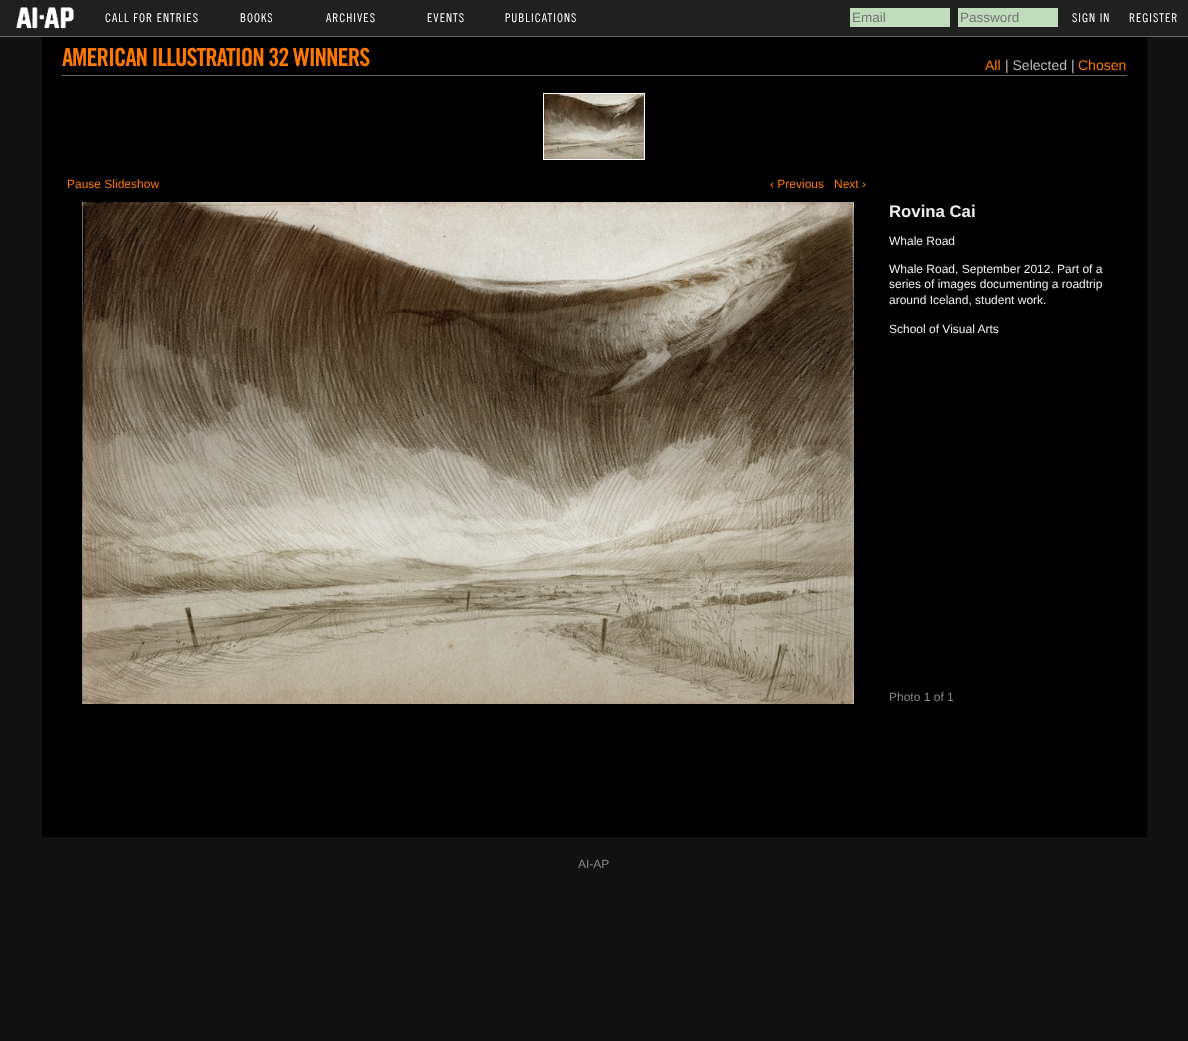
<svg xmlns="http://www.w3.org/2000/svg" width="1188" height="1041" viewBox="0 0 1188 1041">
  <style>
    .t1 { font: 12px 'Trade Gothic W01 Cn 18'; letter-spacing: 1px; fill: #fff; }
    .t2 { font: 13.5px Liberation Sans; fill: #757575; }
    .t3 { font: bold 25px 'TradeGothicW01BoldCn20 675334'; letter-spacing: -1px; fill: #f70; }
    .t4 { font: 14px Liberation Sans; fill: #f70; }
    .t5 { font: 14px Liberation Sans; fill: #bbb; }
    .t6 { font: 12px Liberation Sans; fill: #f70; }
    .t7 { font: bold 16.75px Liberation Sans; fill: #eee; }
    .t8 { font: 12px Liberation Sans; fill: #eee; }
    .t9 { font: 12px Liberation Sans; fill: #888; }
  </style>
  <rect width="100%" height="100%" fill="#111"/>
  <rect x="0" y="0" width="1188" height="36" fill="#202020"/>
  <image x="16" y="7" width="58" height="22" href="images/1.png"/>
  <text x="105" y="22" class="t1">CALL FOR ENTRIES</text>
  <text x="240" y="22" class="t1">BOOKS</text>
  <text x="326" y="22" class="t1">ARCHIVES</text>
  <text x="427" y="22" class="t1">EVENTS</text>
  <text x="505" y="22" class="t1">PUBLICATIONS</text>
  <rect x="850" y="8" width="100" height="19" fill="#c1dbbd"/>
  <text x="852" y="22" class="t2">Email</text>
  <rect x="958" y="8" width="100" height="19" fill="#c1dbbd"/>
  <text x="960" y="22" class="t2">Password</text>
  <text x="1072" y="22" class="t1">SIGN IN</text>
  <text x="1129" y="22" class="t1">REGISTER</text>
  <rect x="0" y="36" width="1188" height="1" fill="#666"/>
  <rect x="42" y="37" width="1105" height="800" fill="#000"/>
  <rect x="62" y="75" width="1065" height="1" fill="#666"/>
  <text x="62" y="66" class="t3">AMERICAN ILLUSTRATION 32 WINNERS</text>
  <text x="985" y="70" class="t4">All</text>
  <text x="1005" y="70" class="t5">| Selected |</text>
  <text x="1078" y="70" class="t4">Chosen</text>
  <rect x="543" y="93" width="102" height="67" fill="#fff"/>
  <image x="544" y="94" width="100" height="65" href="images/2.png"/>
  <text x="67" y="188" class="t6">Pause Slideshow</text>
  <text x="770" y="188" class="t6">‹ Previous</text>
  <text x="834" y="188" class="t6">Next ›</text>
  <image x="82" y="202" width="772" height="502" href="images/3.png"/>
  <text x="889" y="217" class="t7">Rovina Cai</text>
  <text x="889" y="245" class="t8">Whale Road</text>
  <text x="889" y="273" class="t8">Whale Road, September 2012. Part of a</text>
  <text x="889" y="288" class="t8">series of images documenting a roadtrip</text>
  <text x="889" y="304" class="t8">around Iceland, student work.</text>
  <text x="889" y="333" class="t8">School of Visual Arts</text>
  <text x="889" y="701" class="t9">Photo 1 of 1</text>
  <text x="578" y="868" class="t9">AI-AP</text>
</svg>
